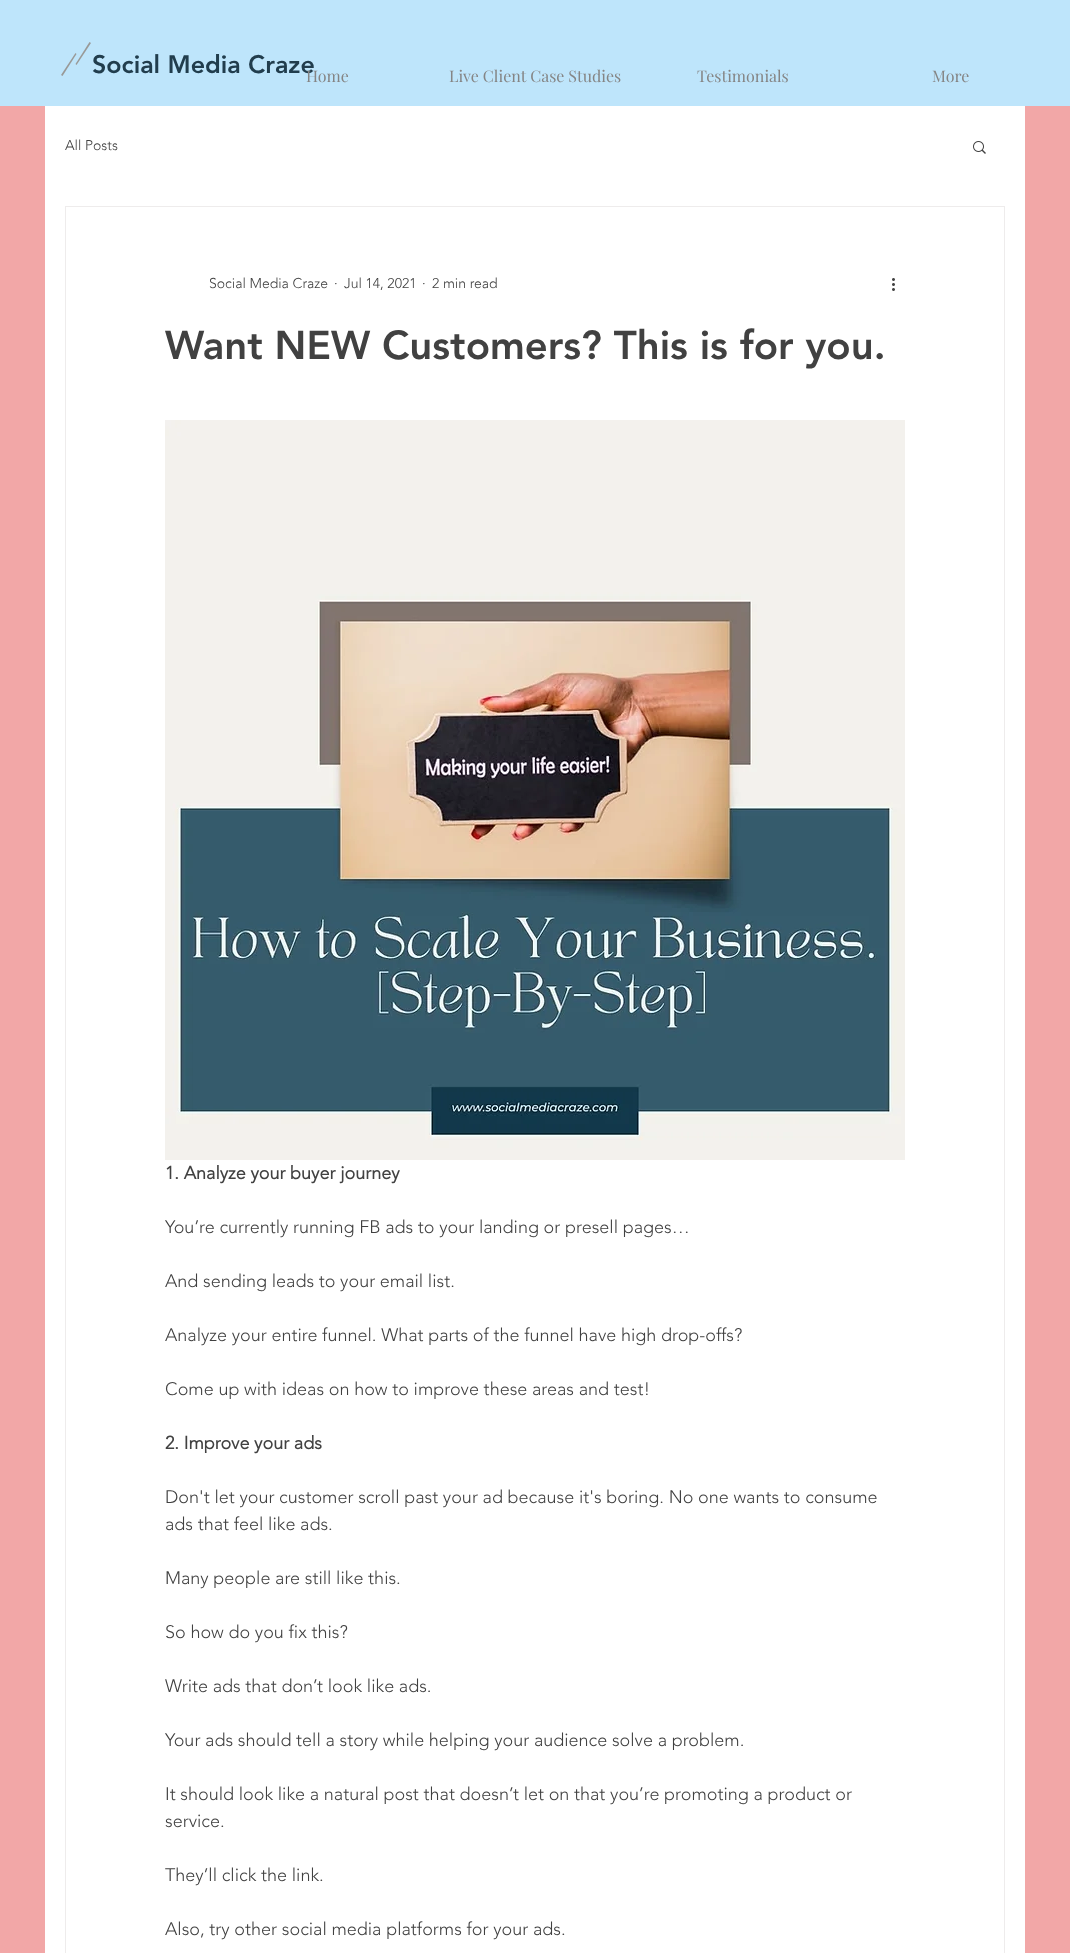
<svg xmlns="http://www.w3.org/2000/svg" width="1070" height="1953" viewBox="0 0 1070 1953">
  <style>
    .t1 { font: 900 25px 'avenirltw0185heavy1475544'; fill: #213d4d; }
    .t2 { font: 16px Playfair Display; fill: #858585; }
    .t3 { font: 300 14px 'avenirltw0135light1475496'; fill: #414141; }
    .t4 { font: 900 40px 'avenirltw0185heavy1475544'; fill: #414141; }
    .t5 { font: bold 18px 'avenirltw0135light1475496'; fill: #414141; }
    .t6 { font: 300 18px 'avenirltw0135light1475496'; fill: #414141; }
  </style>
  <rect width="100%" height="100%" fill="#f2a7a7"/>
  <rect x="0" y="0" width="1070" height="106" fill="#bee5fb"/>
  <path d="M76.5 65L75.5 64L89.5 42L91 43Z" fill="#999997"/>
  <path d="M62.5 76L61 75L75.5 53L76.5 54Z" fill="#999997"/>
  <text x="92" y="73" class="t1">Social Media Craze</text>
  <text x="306" y="82" class="t2">Home</text>
  <text x="449" y="82" class="t2">Live Client Case Studies</text>
  <text x="697" y="82" class="t2">Testimonials</text>
  <text x="932" y="82" class="t2">More</text>
  <rect x="45" y="106" width="980" height="1847" fill="#fff"/>
  <text x="65" y="150" class="t3">All Posts</text>
  <image x="973" y="141" width="13" height="13" href="images/1.png"/>
  <rect x="65.5" y="206.5" width="939" height="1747" fill="none" stroke="#eeecec"/>
  <text x="209" y="288" class="t3">Social Media Craze</text>
  <text x="334" y="288" class="t3">·</text>
  <text x="344" y="288" class="t3">Jul 14, 2021</text>
  <text x="422" y="288" class="t3">·</text>
  <text x="432" y="288" class="t3">2 min read</text>
  <image x="892" y="278" width="3" height="13" href="images/2.png"/>
  <text x="165" y="359" class="t4">Want NEW Customers? This is for you.</text>
  <image x="165" y="420" width="740" height="740" href="images/3.png"/>
  <text x="165" y="1179" class="t5">1. Analyze your buyer journey</text>
  <text x="165" y="1233" class="t6">You’re currently running FB ads to your landing or presell pages…</text>
  <text x="165" y="1287" class="t6">And sending leads to your email list.</text>
  <text x="165" y="1341" class="t6">Analyze your entire funnel. What parts of the funnel have high drop-offs?</text>
  <text x="165" y="1395" class="t6">Come up with ideas on how to improve these areas and test!</text>
  <text x="165" y="1449" class="t5">2. Improve your ads</text>
  <text x="165" y="1503" class="t6">Don't let your customer scroll past your ad because it's boring. No one wants to consume</text>
  <text x="165" y="1530" class="t6">ads that feel like ads.</text>
  <text x="165" y="1584" class="t6">Many people are still like this.</text>
  <text x="165" y="1638" class="t6">So how do you fix this?</text>
  <text x="165" y="1692" class="t6">Write ads that don’t look like ads.</text>
  <text x="165" y="1746" class="t6">Your ads should tell a story while helping your audience solve a problem.</text>
  <text x="165" y="1800" class="t6">It should look like a natural post that doesn’t let on that you’re promoting a product or</text>
  <text x="165" y="1827" class="t6">service.</text>
  <text x="165" y="1881" class="t6">They’ll click the link.</text>
  <text x="165" y="1935" class="t6">Also, try other social media platforms for your ads.</text>
</svg>
